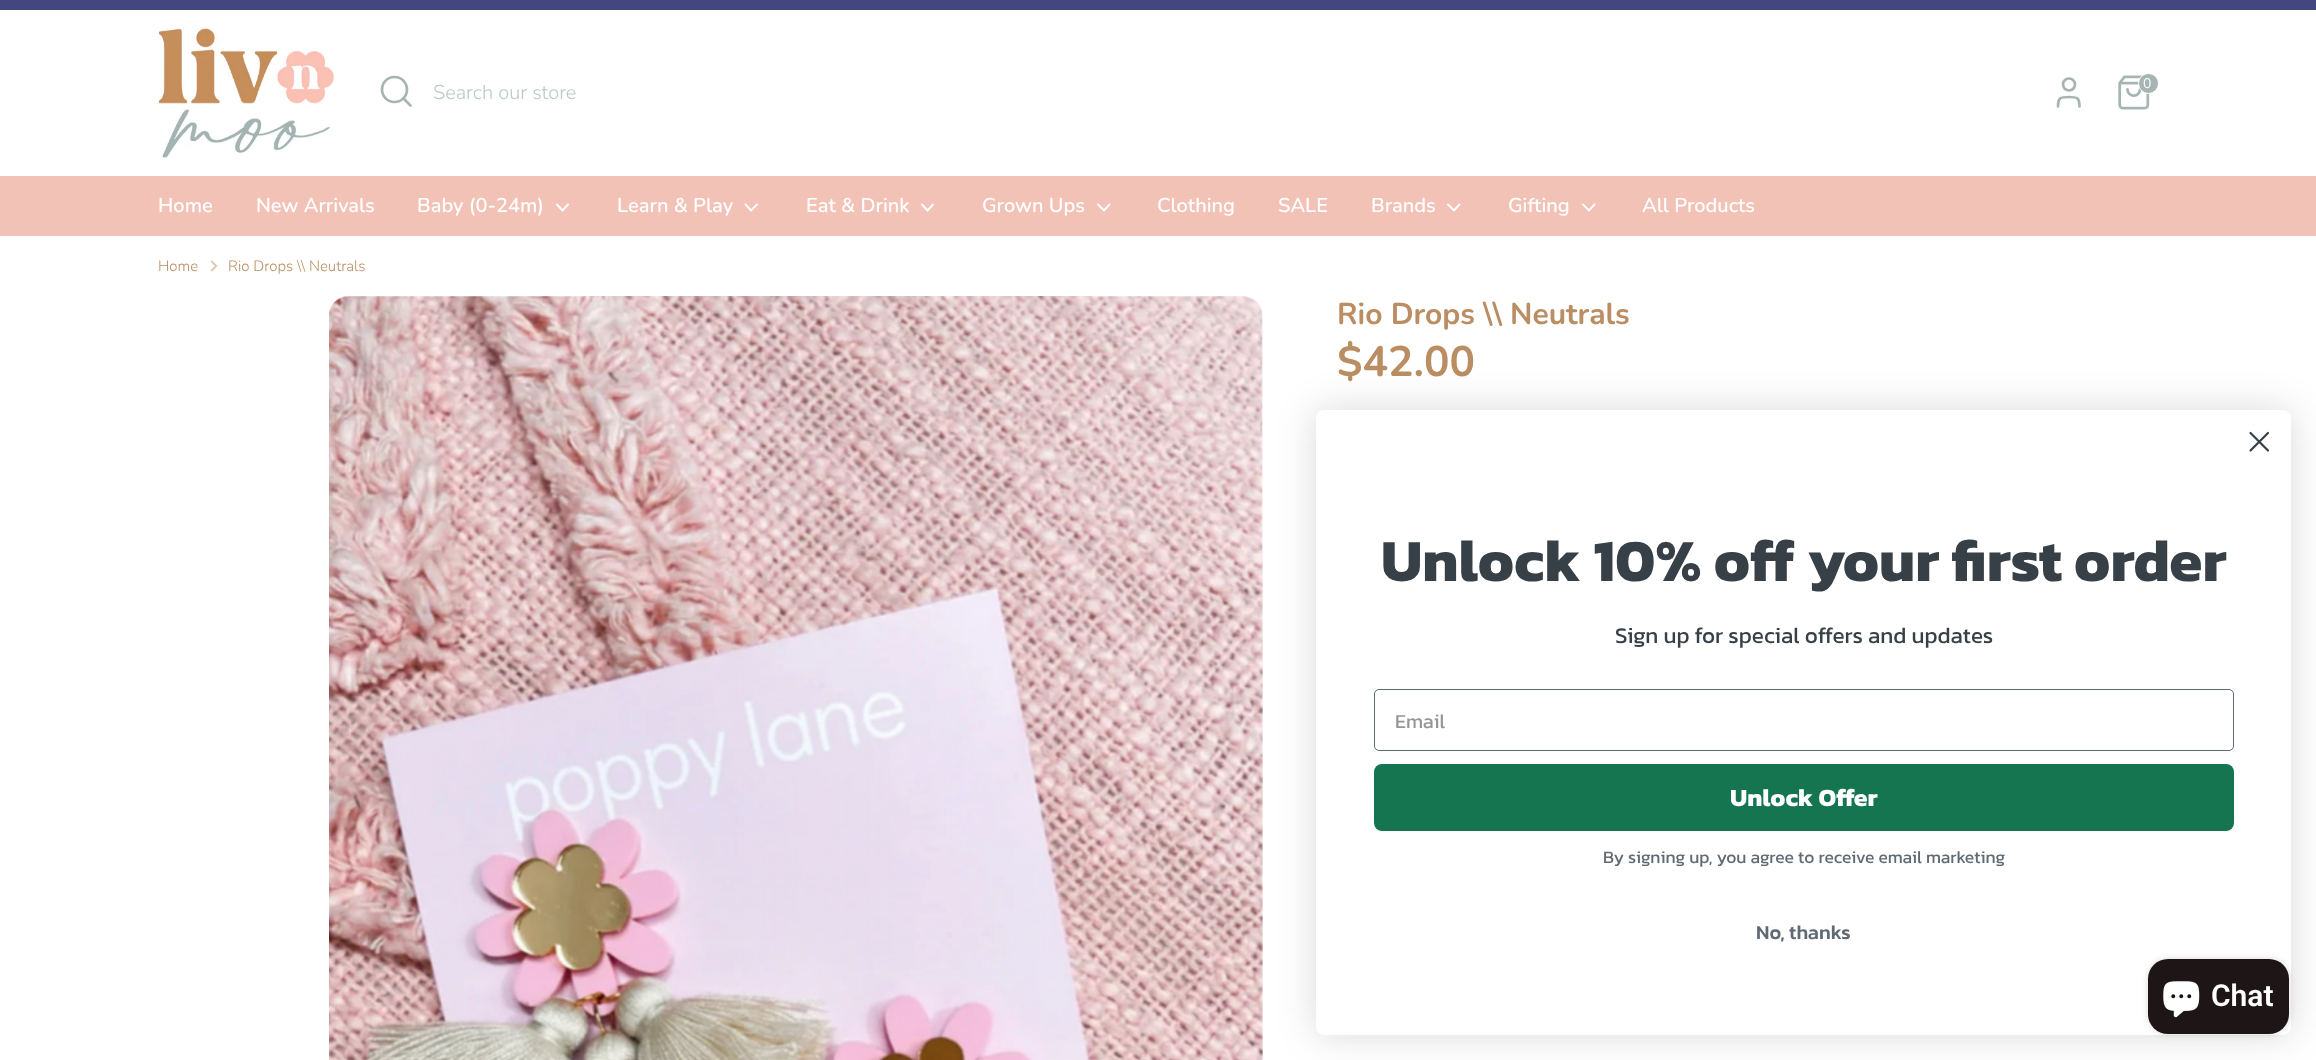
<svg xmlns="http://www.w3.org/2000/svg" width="2316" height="1060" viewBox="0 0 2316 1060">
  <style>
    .t1 { font: 300 20px Nunito; fill: #bdc7c7; }
    .t2 { font: 14px Nunito; fill: #fff; }
    .t3 { font: 600 20px Nunito; fill: #fff; }
    .t4 { font: 300 15px Nunito; fill: #ba8e62; }
    .t5 { font: bold 30px Nunito; fill: #ba8e62; }
    .t6 { font: bold 42.5px Nunito; fill: #ba8e62; }
    .t7 { font: bold 60px Kanit; fill: #373f47; }
    .t8 { font: 22.5px Kanit; fill: #373f47; }
    .t9 { font: 20px Kanit; fill: #949596; }
    .t10 { font: bold 25px Kanit; fill: #fff; }
    .t11 { font: 17.5px Kanit; fill: #606a72; }
    .t12 { font: 500 20px Kanit; fill: #606a72; }
    .t13 { font: 600 30px Roboto; fill: #fff; }
  </style>
  <rect width="100%" height="100%" fill="#fff"/>
  <rect x="0" y="0" width="2316" height="10" fill="#43467f"/>
  <image x="158" y="28" width="176" height="130" href="images/1.png"/>
  <circle cx="394.5" cy="89.5" r="12.5" fill="none" stroke="#a7b4b4" stroke-width="2.7"/>
  <path d="M410.5 105.5L403.5 98.5" fill="none" stroke="#a7b4b4" stroke-width="2.7" stroke-linecap="round" stroke-linejoin="round"/>
  <text x="433" y="99" class="t1">Search our store</text>
  <path d="M2079.5 106.5C2079.5 97.5 2077 97 2069 97C2060.5 97 2058 97.5 2058 106.5" fill="none" stroke="#a7b4b4" stroke-width="2.7" stroke-linecap="round" stroke-linejoin="round"/>
  <circle cx="2069" cy="84.5" r="6" fill="none" stroke="#a7b4b4" stroke-width="2.7"/>
  <image x="2118" y="75" width="32" height="35" href="images/2.png"/>
  <circle cx="2148.5" cy="83.5" r="10" fill="#a7b4b4" stroke="#fff"/>
  <text x="2143" y="88" class="t2">0</text>
  <rect x="0" y="176" width="2316" height="60" fill="#f1c2b5"/>
  <text x="158" y="212" class="t3">Home</text>
  <text x="256" y="212" class="t3">New Arrivals</text>
  <text x="417" y="212" class="t3">Baby (0-24m)</text>
  <path d="M557 204.5L562.5 210.5L568 204.5" fill="none" stroke="#fff" stroke-width="1.9" stroke-linecap="round"/>
  <text x="617" y="212" class="t3">Learn &amp; Play</text>
  <path d="M745.5 204.5L751 210.5L757 204.5" fill="none" stroke="#fff" stroke-width="1.9" stroke-linecap="round"/>
  <text x="806" y="212" class="t3">Eat &amp; Drink</text>
  <path d="M922 204.5L927.5 210.5L933 204.5" fill="none" stroke="#fff" stroke-width="1.9" stroke-linecap="round"/>
  <text x="982" y="212" class="t3">Grown Ups</text>
  <path d="M1098 204.5L1104 210.5L1109.5 204.5" fill="none" stroke="#fff" stroke-width="1.9" stroke-linecap="round"/>
  <text x="1157" y="212" class="t3">Clothing</text>
  <text x="1278" y="212" class="t3">SALE</text>
  <text x="1371" y="212" class="t3">Brands</text>
  <path d="M1448 204.5L1454 210.5L1459.5 204.5" fill="none" stroke="#fff" stroke-width="1.9" stroke-linecap="round"/>
  <text x="1508" y="212" class="t3">Gifting</text>
  <path d="M1583 204.5L1589 210.5L1594.5 204.5" fill="none" stroke="#fff" stroke-width="1.9" stroke-linecap="round"/>
  <text x="1642" y="212" class="t3">All Products</text>
  <text x="158" y="271" class="t4">Home</text>
  <image x="210" y="260" width="8" height="12" href="images/3.png"/>
  <text x="228" y="271" class="t4">Rio Drops \\ Neutrals</text>
  <image x="329" y="296" width="934" height="764" href="images/4.png"/>
  <text x="1337" y="324" class="t5">Rio Drops \\ Neutrals</text>
  <text x="1337" y="376" class="t6">$42.00</text>
  <rect x="1316" y="410" width="975" height="625" rx="8" fill="#00000026" filter="blur(19px)"/>
  <rect x="1316" y="410" width="975" height="625" rx="8" fill="#fff"/>
  <path d="M2250.5 433L2268 450.5M2250.5 450.5L2268 433Z" fill="none" stroke="#373f47" stroke-width="2.2" stroke-linecap="round" stroke-linejoin="round"/>
  <text x="1381" y="581" class="t7">Unlock 10% off your first order</text>
  <text x="1615" y="643" class="t8">Sign up for special offers and updates</text>
  <rect x="1374.5" y="689.5" width="859" height="61" rx="4.5" fill="none" stroke="#606a72"/>
  <text x="1395" y="728" class="t9">Email</text>
  <rect x="1374" y="764" width="860" height="67" rx="8" fill="#157551"/>
  <text x="1730" y="806" class="t10">Unlock Offer</text>
  <text x="1603" y="863" class="t11">By signing up, you agree to receive email marketing</text>
  <text x="1756" y="939" class="t12">No, thanks</text>
  <rect x="2148" y="959" width="141" height="75" rx="20" fill="#00000026" filter="blur(3px)"/>
  <rect x="2148" y="959" width="141" height="75" rx="20" fill="#1e1616"/>
  <image x="2163" y="981" width="37" height="37" href="images/5.png"/>
  <text x="2211" y="1006" class="t13">Chat</text>
</svg>
